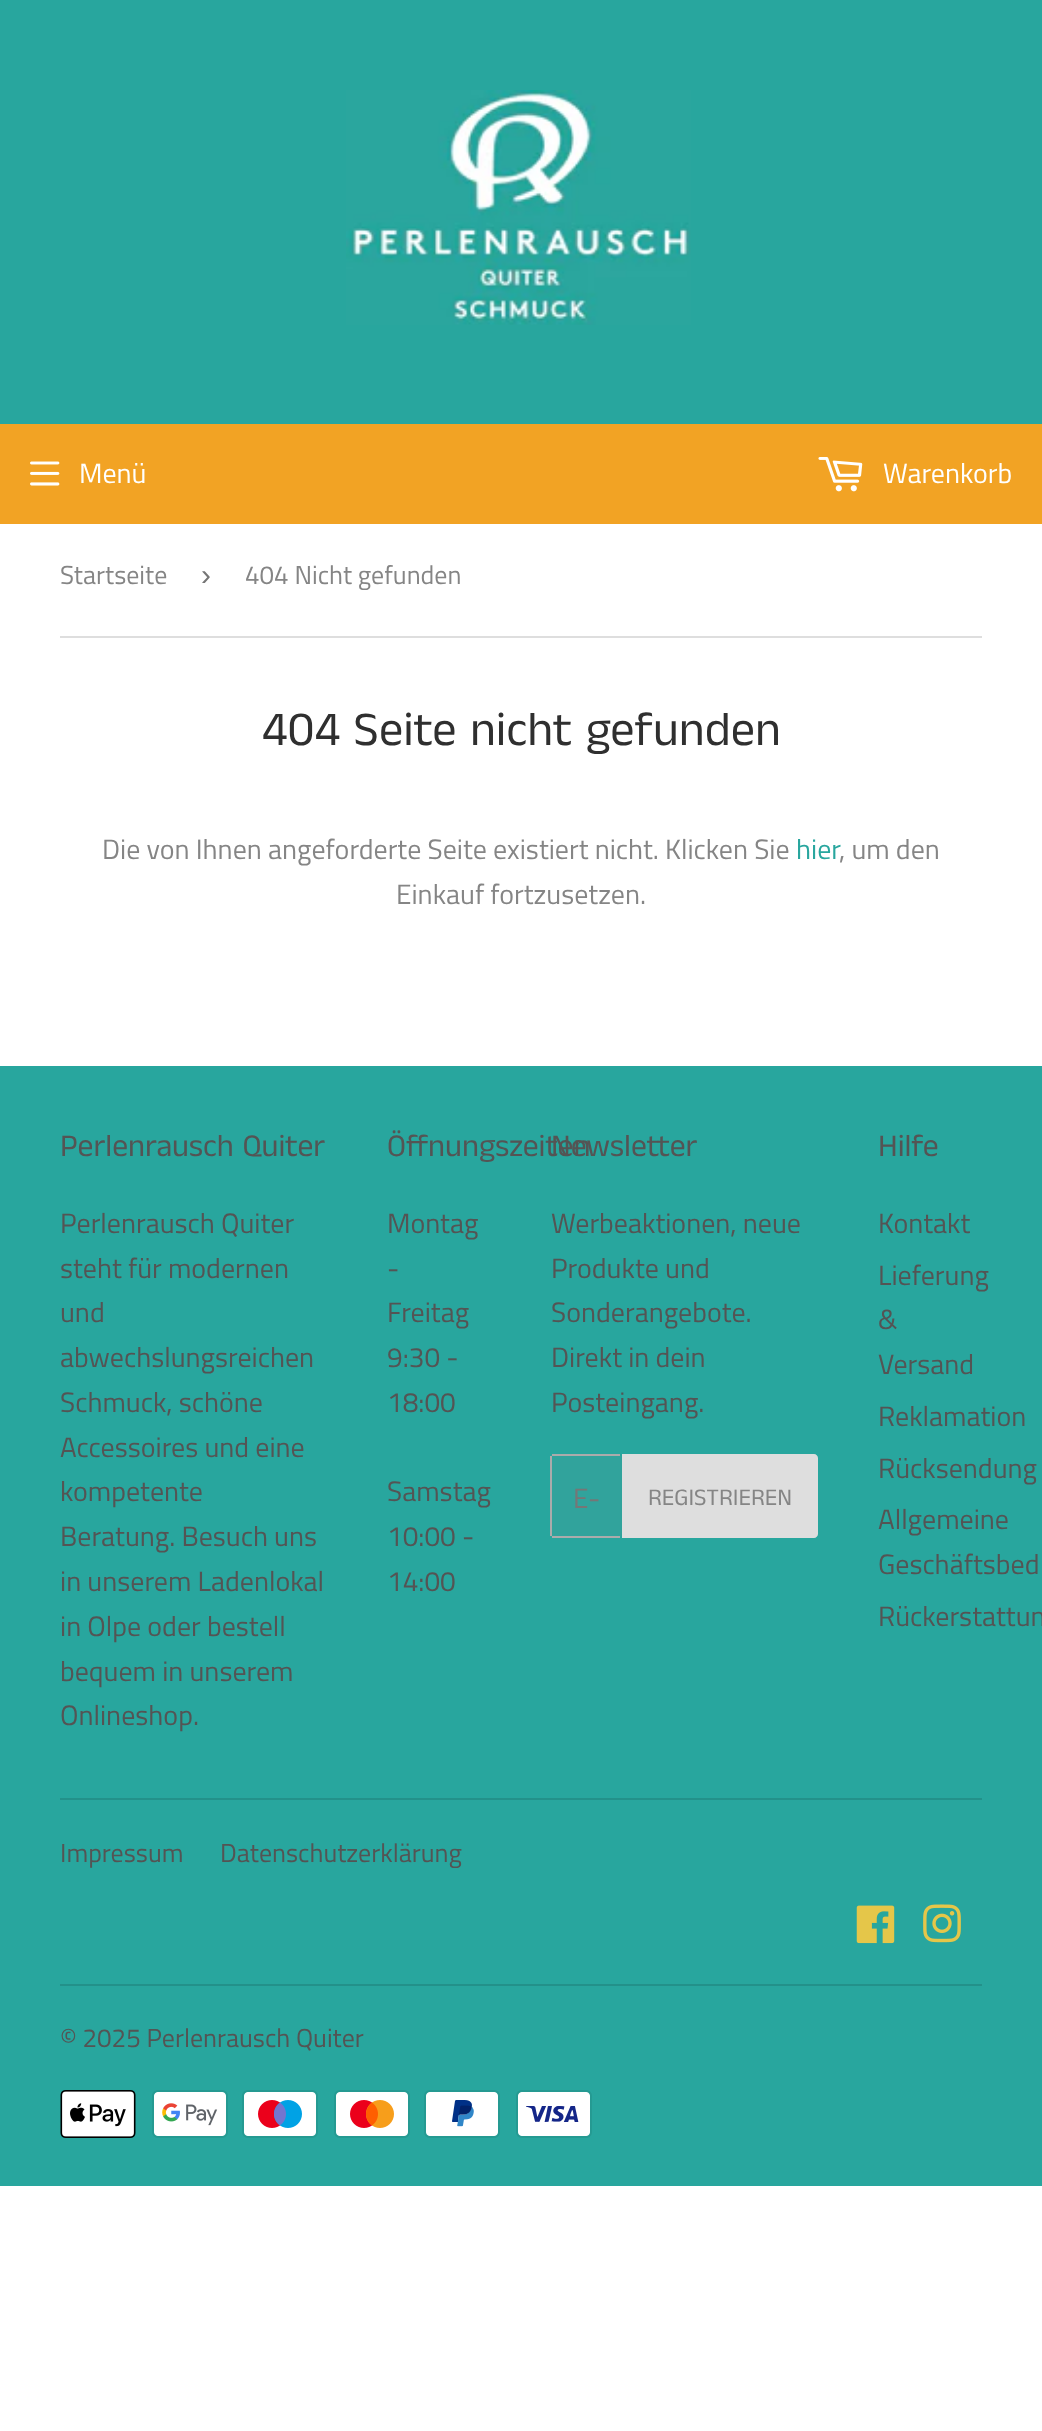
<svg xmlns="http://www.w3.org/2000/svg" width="1042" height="2431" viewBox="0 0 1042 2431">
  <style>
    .t1 { font: 28px Titillium Web; fill: #fff; }
    .t2 { font: 26px Titillium Web; fill: #858585; }
    .t3 { font: 30px Liberation Sans; fill: #767676; }
    .t4 { font: 48.5px Anek Tamil; fill: #2f2f2f; }
    .t5 { font: 28px Titillium Web; fill: #858585; }
    .t6 { font: 28px Titillium Web; fill: #28a69e; }
    .t7 { font: 31.75px Anek Tamil; fill: #545454; }
    .t8 { font: 28px Titillium Web; fill: #545454; }
    .t9 { font: 28px Titillium Web; fill: #767676; }
    .t10 { font: 24px Anek Tamil; fill: #858585; }
    .t11 { font: 26px Titillium Web; fill: #545454; }
  </style>
  <rect width="100%" height="100%" fill="#fff"/>
  <rect x="0" y="0" width="1042" height="424" fill="#28a69e"/>
  <image x="346" y="90" width="345" height="235" href="images/1.png"/>
  <rect x="0" y="424" width="1042" height="100" fill="#f2a324"/>
  <image x="30" y="461" width="30" height="25" href="images/2.png"/>
  <text x="79" y="483" class="t1">Menü</text>
  <image x="818" y="457" width="45" height="35" href="images/3.png"/>
  <text x="883" y="483" class="t1">Warenkorb</text>
  <rect x="60" y="636" width="922" height="2" fill="#dedede"/>
  <text x="60" y="584" class="t2">Startseite</text>
  <text x="201" y="585" class="t3">›</text>
  <text x="245" y="584" class="t2">404 Nicht gefunden</text>
  <text x="262" y="745" class="t4">404 Seite nicht gefunden</text>
  <text x="102" y="859" class="t5">Die von Ihnen angeforderte Seite existiert nicht. Klicken Sie</text>
  <text x="796" y="859" class="t6">hier</text>
  <text x="839" y="859" class="t5">, um den</text>
  <text x="396" y="904" class="t5">Einkauf fortzusetzen.</text>
  <rect x="0" y="1066" width="1042" height="1120" fill="#28a69e"/>
  <text x="60" y="1156" class="t7">Perlenrausch Quiter</text>
  <text x="60" y="1233" class="t8">Perlenrausch Quiter</text>
  <text x="60" y="1278" class="t8">steht für modernen</text>
  <text x="60" y="1322" class="t8">und</text>
  <text x="60" y="1367" class="t8">abwechslungsreichen</text>
  <text x="60" y="1412" class="t8">Schmuck, schöne</text>
  <text x="60" y="1457" class="t8">Accessoires und eine</text>
  <text x="60" y="1501" class="t8">kompetente</text>
  <text x="60" y="1546" class="t8">Beratung. Besuch uns</text>
  <text x="60" y="1591" class="t8">in unserem Ladenlokal</text>
  <text x="60" y="1636" class="t8">in Olpe oder bestell</text>
  <text x="60" y="1681" class="t8">bequem in unserem</text>
  <text x="60" y="1725" class="t8">Onlineshop.</text>
  <text x="387" y="1156" class="t7">Öffnungszeiten</text>
  <text x="387" y="1233" class="t8">Montag</text>
  <text x="387" y="1278" class="t8">-</text>
  <text x="387" y="1322" class="t8">Freitag</text>
  <text x="387" y="1367" class="t8">9:30 -</text>
  <text x="387" y="1412" class="t8">18:00</text>
  <text x="387" y="1501" class="t8">Samstag</text>
  <text x="387" y="1546" class="t8">10:00 -</text>
  <text x="387" y="1591" class="t8">14:00</text>
  <text x="551" y="1156" class="t7">Newsletter</text>
  <text x="551" y="1233" class="t8">Werbeaktionen, neue</text>
  <text x="551" y="1278" class="t8">Produkte und</text>
  <text x="551" y="1322" class="t8">Sonderangebote.</text>
  <text x="551" y="1367" class="t8">Direkt in dein</text>
  <text x="551" y="1412" class="t8">Posteingang.</text>
  <rect x="550" y="1454" width="72" height="84" rx="4" fill="#31a39c"/>
  <rect x="552" y="1454" width="68" height="2" fill="#ababab"/>
  <rect x="552" y="1536" width="68" height="2" fill="#ababab"/>
  <rect x="550" y="1456" width="2" height="80" fill="#ababab"/>
  <text x="573" y="1508" class="t9">E-</text>
  <path d="M622 1454H814C816 1454 818 1456 818 1458V1534C818 1536 816 1538 814 1538H622Z" fill="#dedede"/>
  <text x="648" y="1505" class="t10">REGISTRIEREN</text>
  <text x="878" y="1156" class="t7">Hilfe</text>
  <text x="878" y="1233" class="t8">Kontakt</text>
  <text x="878" y="1285" class="t8">Lieferung</text>
  <text x="878" y="1329" class="t8">&amp;</text>
  <text x="878" y="1374" class="t8">Versand</text>
  <text x="878" y="1426" class="t8">Reklamation</text>
  <text x="878" y="1478" class="t8">Rücksendung</text>
  <text x="878" y="1529" class="t8">Allgemeine</text>
  <text x="878" y="1574" class="t8">Geschäftsbed</text>
  <text x="878" y="1626" class="t8">Rückerstattun</text>
  <rect x="60" y="1798" width="922" height="2" fill="#23918a"/>
  <text x="60" y="1862" class="t11">Impressum</text>
  <text x="220" y="1862" class="t11">Datenschutzerklärung</text>
  <image x="856" y="1905" width="39" height="39" href="images/4.png"/>
  <image x="923" y="1904" width="38" height="39" href="images/5.png"/>
  <rect x="60" y="1984" width="922" height="2" fill="#23918a"/>
  <text x="60" y="2047" class="t11">© 2025 Perlenrausch Quiter</text>
  <image x="60" y="2090" width="76" height="48" href="images/6.png"/>
  <image x="152" y="2090" width="76" height="48" href="images/7.png"/>
  <image x="242" y="2090" width="76" height="48" href="images/8.png"/>
  <image x="334" y="2090" width="76" height="48" href="images/9.png"/>
  <image x="424" y="2090" width="76" height="48" href="images/10.png"/>
  <image x="516" y="2090" width="76" height="48" href="images/11.png"/>
</svg>
